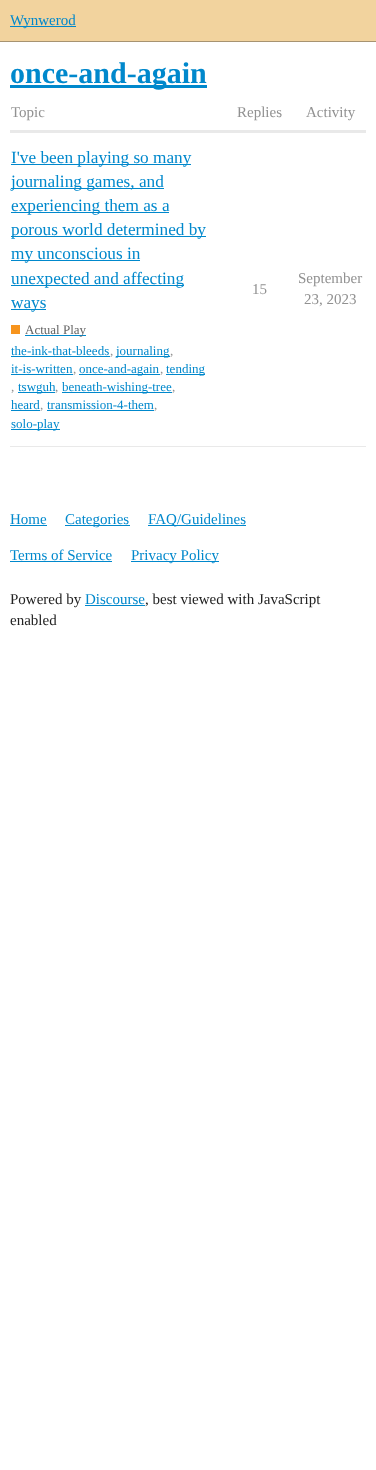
<svg xmlns="http://www.w3.org/2000/svg" width="376" height="1470" viewBox="0 0 376 1470">
  <style>
    .t1 { font: 15px Liberation Serif; fill: #08c; }
    .t2 { font: bold 30px Liberation Serif; fill: #08c; }
    .t3 { font: 15px Liberation Serif; fill: #919191; }
    .t4 { font: 17.25px Liberation Serif; fill: #08c; }
    .t5 { font: 13px Liberation Serif; fill: #646464; }
    .t6 { font: 13px Liberation Serif; fill: #08c; }
    .t7 { font: 13px Liberation Serif; fill: #919191; }
    .t8 { font: 15px Liberation Serif; fill: #222; }
  </style>
  <rect width="100%" height="100%" fill="#fff"/>
  <rect x="0" y="0" width="376" height="41" fill="#f2d39e"/>
  <rect x="0" y="41" width="376" height="1" fill="#a79371"/>
  <rect x="10" y="26" width="66" height="1" fill="#08c"/>
  <text x="10" y="25" class="t1">Wynwerod</text>
  <rect x="10" y="85" width="197" height="3" fill="#08c"/>
  <text x="10" y="83" class="t2">once-and-again</text>
  <text x="11" y="117" class="t3">Topic</text>
  <text x="237" y="117" class="t3">Replies</text>
  <text x="306" y="117" class="t3">Activity</text>
  <rect x="10" y="130" width="356" height="3" fill="#e9e9e9"/>
  <rect x="10" y="446" width="356" height="1" fill="#e9e9e9"/>
  <rect x="11" y="164" width="180" height="1" fill="#08c"/>
  <text x="11" y="163" class="t4">I've been playing so many</text>
  <rect x="11" y="188" width="153" height="1" fill="#08c"/>
  <text x="11" y="187" class="t4">journaling games, and</text>
  <rect x="11" y="212" width="158" height="1" fill="#08c"/>
  <text x="11" y="211" class="t4">experiencing them as a</text>
  <rect x="11" y="236" width="195" height="1" fill="#08c"/>
  <text x="11" y="235" class="t4">porous world determined by</text>
  <rect x="11" y="260" width="129" height="1" fill="#08c"/>
  <text x="11" y="259" class="t4">my unconscious in</text>
  <rect x="11" y="285" width="173" height="1" fill="#08c"/>
  <text x="11" y="284" class="t4">unexpected and affecting</text>
  <rect x="11" y="309" width="35" height="1" fill="#08c"/>
  <text x="11" y="308" class="t4">ways</text>
  <rect x="11" y="325" width="9" height="9" fill="#f7941d"/>
  <rect x="25" y="335" width="61" height="1" fill="#08c"/>
  <text x="25" y="334" class="t5">Actual Play</text>
  <text x="11" y="355" class="t6">the-ink-that-bleeds</text>
  <rect x="11" y="356" width="99" height="1" fill="#08c"/>
  <text x="110" y="355" class="t7">,</text>
  <rect x="116" y="356" width="54" height="1" fill="#08c"/>
  <text x="116" y="355" class="t6">journaling</text>
  <text x="170" y="355" class="t7">,</text>
  <text x="11" y="373" class="t6">it-is-written</text>
  <rect x="11" y="374" width="62" height="1" fill="#08c"/>
  <text x="73" y="373" class="t7">,</text>
  <rect x="79" y="374" width="81" height="1" fill="#08c"/>
  <text x="79" y="373" class="t6">once-and-again</text>
  <text x="160" y="373" class="t7">,</text>
  <rect x="166" y="374" width="39" height="1" fill="#08c"/>
  <text x="166" y="373" class="t6">tending</text>
  <text x="11" y="391" class="t7">,</text>
  <rect x="18" y="392" width="37" height="1" fill="#08c"/>
  <text x="18" y="391" class="t6">tswguh</text>
  <text x="55" y="391" class="t7">,</text>
  <rect x="62" y="392" width="110" height="1" fill="#08c"/>
  <text x="62" y="391" class="t6">beneath-wishing-tree</text>
  <text x="172" y="391" class="t7">,</text>
  <text x="11" y="409" class="t6">heard</text>
  <rect x="11" y="410" width="29" height="1" fill="#08c"/>
  <text x="40" y="409" class="t7">,</text>
  <text x="47" y="409" class="t6">transmission-4-them</text>
  <rect x="47" y="410" width="107" height="1" fill="#08c"/>
  <text x="154" y="409" class="t7">,</text>
  <rect x="11" y="429" width="49" height="1" fill="#08c"/>
  <text x="11" y="428" class="t6">solo-play</text>
  <text x="252" y="294" class="t3">15</text>
  <text x="298" y="283" class="t3">September</text>
  <text x="304" y="304" class="t3">23, 2023</text>
  <text x="10" y="524" class="t1">Home</text>
  <rect x="10" y="525" width="37" height="1" fill="#08c"/>
  <rect x="65" y="525" width="65" height="1" fill="#08c"/>
  <text x="65" y="524" class="t1">Categories</text>
  <rect x="148" y="525" width="98" height="1" fill="#08c"/>
  <text x="148" y="524" class="t1">FAQ/Guidelines</text>
  <text x="10" y="560" class="t1">Terms of Service</text>
  <rect x="10" y="561" width="102" height="1" fill="#08c"/>
  <rect x="131" y="561" width="88" height="1" fill="#08c"/>
  <text x="131" y="560" class="t1">Privacy Policy</text>
  <text x="10" y="604" class="t8">Powered by</text>
  <text x="85" y="604" class="t1">Discourse</text>
  <rect x="85" y="605" width="60" height="1" fill="#08c"/>
  <text x="145" y="604" class="t8">, best viewed with JavaScript</text>
  <text x="10" y="625" class="t8">enabled</text>
</svg>
